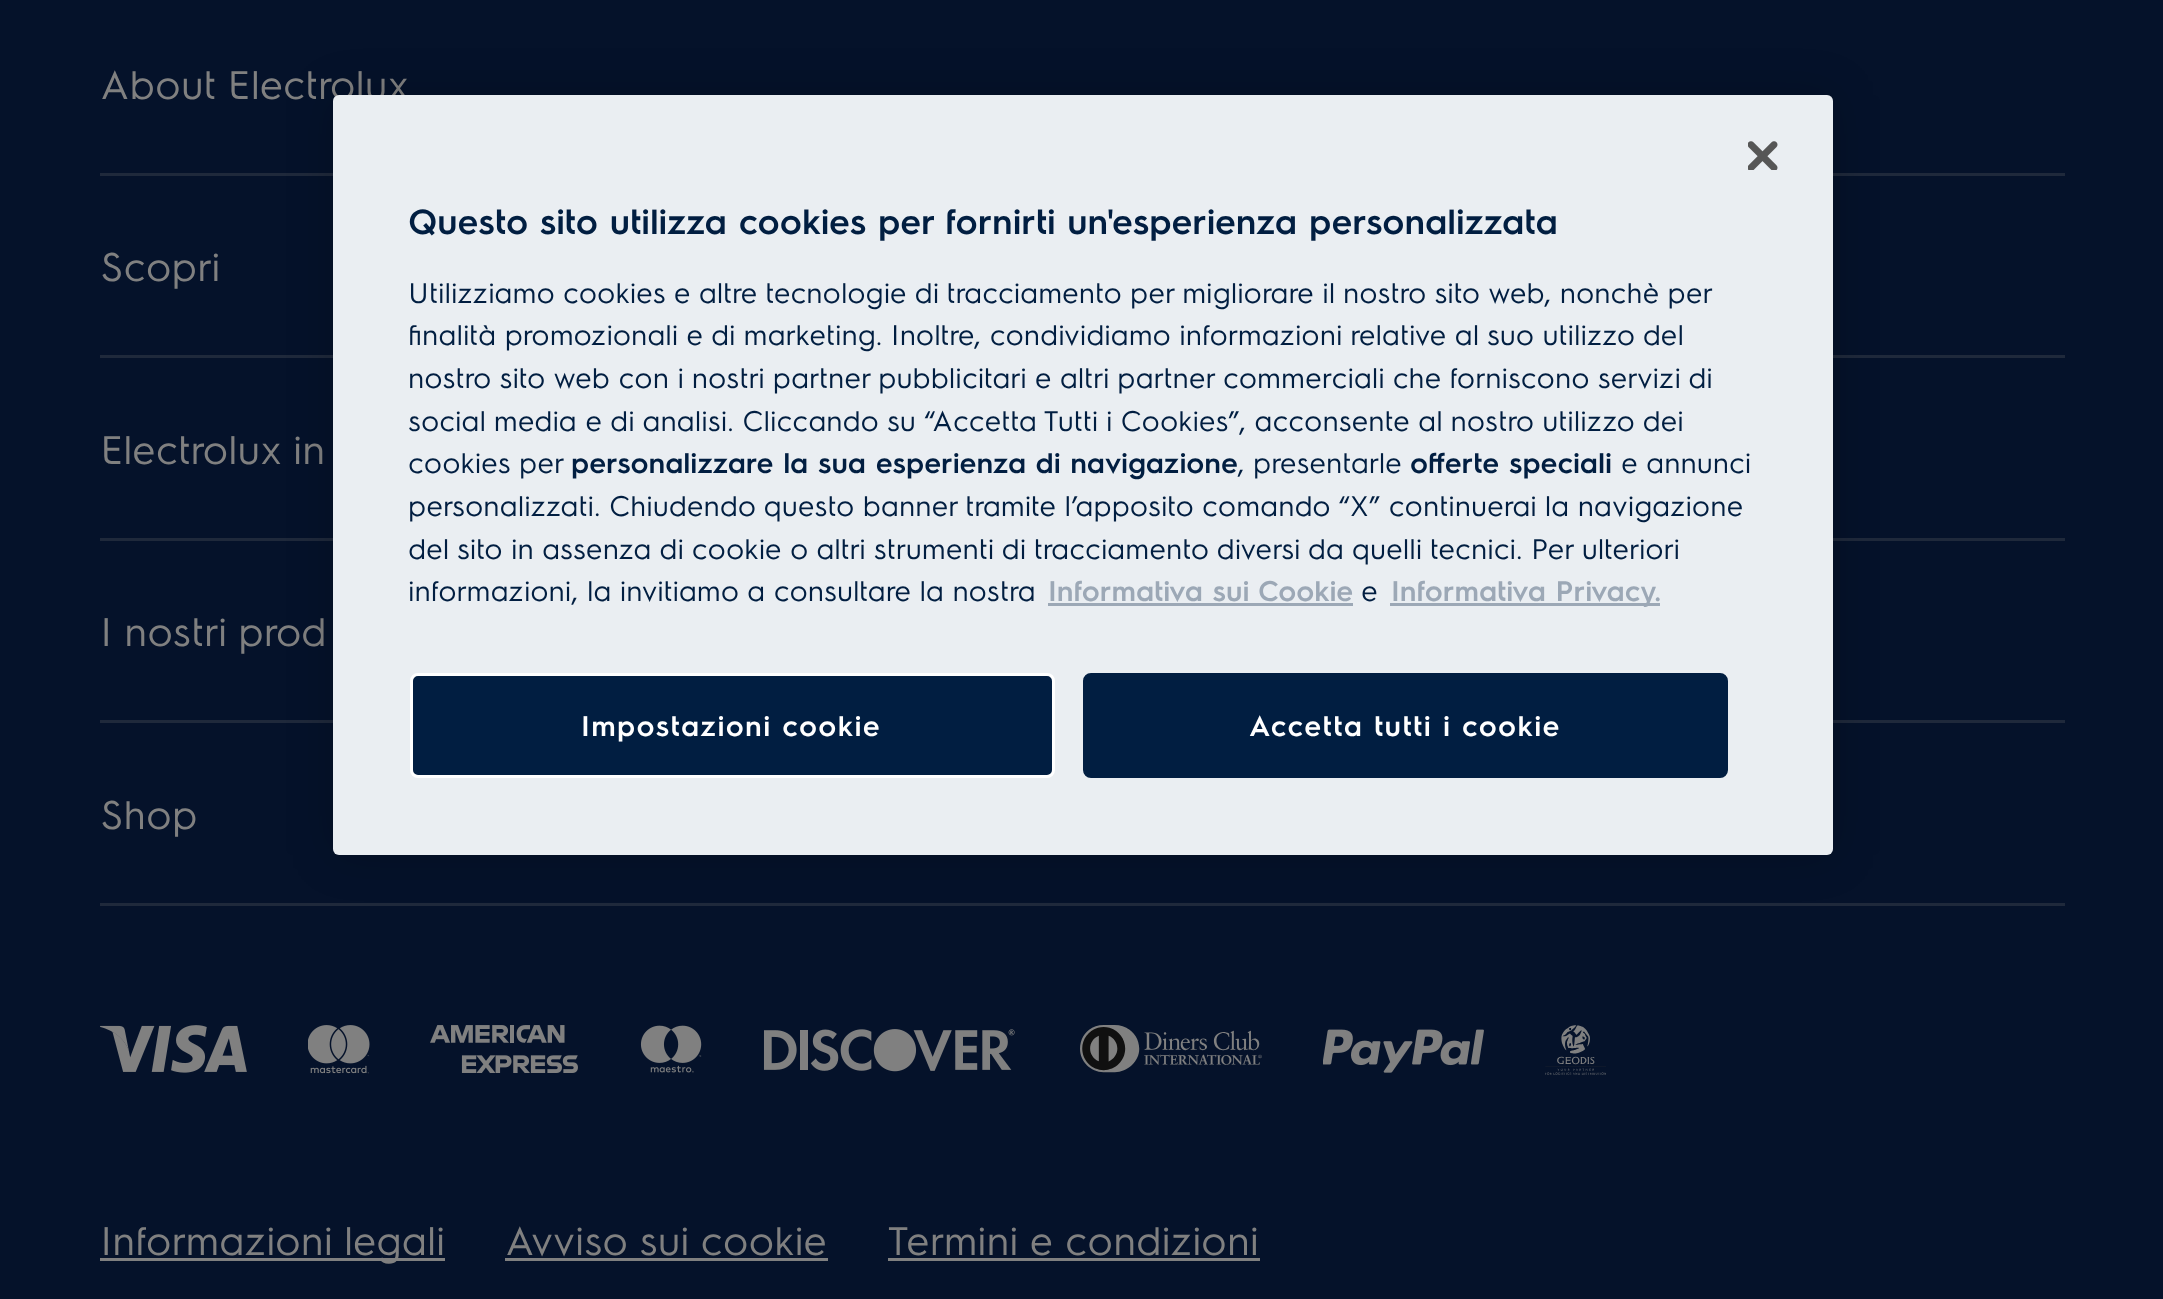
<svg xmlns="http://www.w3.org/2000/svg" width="2163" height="1299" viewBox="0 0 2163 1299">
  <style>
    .t1 { font: 40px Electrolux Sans; fill: #808080; }
    .t2 { font: 600 35px Electrolux Sans; fill: #011e41; }
    .t3 { font: 28.45px Electrolux Sans; fill: #011e41; }
    .t4 { font: 600 28.45px Electrolux Sans; fill: #011e41; }
    .t5 { font: 600 28.45px Electrolux Sans; fill: #9ca8b6; }
    .t6 { font: 600 28.45px Electrolux Sans; letter-spacing: 1.4px; fill: #fff; }
  </style>
  <rect width="100%" height="100%" fill="#05122a"/>
  <rect x="100" y="173" width="1965" height="3" fill="#1f293b"/>
  <text x="100" y="99" class="t1">About Electrolux</text>
  <rect x="100" y="355" width="1965" height="3" fill="#1f293b"/>
  <text x="100" y="281" class="t1">Scopri</text>
  <rect x="100" y="538" width="1965" height="3" fill="#1f293b"/>
  <text x="100" y="464" class="t1">Electrolux in</text>
  <rect x="100" y="720" width="1965" height="3" fill="#1f293b"/>
  <text x="100" y="646" class="t1">I nostri prod</text>
  <rect x="100" y="903" width="1965" height="3" fill="#1f293b"/>
  <text x="100" y="829" class="t1">Shop</text>
  <image x="100" y="1025" width="147" height="48" href="images/1.png"/>
  <image x="308" y="1025" width="62" height="49" href="images/2.png"/>
  <image x="430" y="1025" width="148" height="48" href="images/3.png"/>
  <image x="640" y="1025" width="62" height="48" href="images/4.png"/>
  <image x="763" y="1029" width="252" height="43" href="images/5.png"/>
  <image x="1080" y="1025" width="182" height="48" href="images/6.png"/>
  <image x="1323" y="1029" width="161" height="44" href="images/7.png"/>
  <image x="1545" y="1025" width="61" height="50" href="images/8.png"/>
  <rect x="100" y="1258" width="345" height="3" fill="#808080"/>
  <text x="100" y="1255" class="t1">Informazioni legali</text>
  <text x="505" y="1255" class="t1">Avviso sui cookie</text>
  <rect x="505" y="1258" width="323" height="3" fill="#808080"/>
  <text x="887" y="1255" class="t1">Termini e condizioni</text>
  <rect x="888" y="1258" width="372" height="3" fill="#808080"/>
  <rect x="333" y="95" width="1500" height="760" rx="6" fill="#00000033" filter="blur(22.5px)"/>
  <rect x="333" y="95" width="1500" height="760" rx="6" fill="#eaeef2"/>
  <image x="1748" y="141" width="30" height="29" href="images/9.png"/>
  <text x="408" y="234" class="t2">Questo sito utilizza cookies per fornirti un'esperienza personalizzata</text>
  <text x="408" y="303" word-spacing="-0.1" class="t3">Utilizziamo cookies e altre tecnologie di tracciamento per migliorare il nostro sito web, nonchè per</text>
  <text x="408" y="345" class="t3">finalità promozionali e di marketing. Inoltre, condividiamo informazioni relative al suo utilizzo del</text>
  <text x="408" y="388" class="t3">nostro sito web con i nostri partner pubblicitari e altri partner commerciali che forniscono servizi di</text>
  <text x="408" y="431" class="t3">social media e di analisi. Cliccando su “Accetta Tutti i Cookies”, acconsente al nostro utilizzo dei</text>
  <text x="408" y="473" class="t3">cookies per</text>
  <text x="571" y="473" class="t4">personalizzare la sua esperienza di navigazione</text>
  <text x="1238" y="473" class="t3">, presentarle</text>
  <text x="1410" y="473" class="t4">offerte speciali</text>
  <text x="1621" y="473" class="t3">e annunci</text>
  <text x="408" y="516" class="t3">personalizzati. Chiudendo questo banner tramite l’apposito comando “X” continuerai la navigazione</text>
  <text x="408" y="559" class="t3">del sito in assenza di cookie o altri strumenti di tracciamento diversi da quelli tecnici. Per ulteriori</text>
  <text x="408" y="601" class="t3">informazioni, la invitiamo a consultare la nostra</text>
  <text x="1048" y="601" class="t5">Informativa sui Cookie</text>
  <rect x="1048" y="603" width="305" height="3" fill="#9ca8b6"/>
  <text x="1361" y="601" class="t3">e</text>
  <rect x="1390" y="603" width="270" height="3" fill="#9ca8b6"/>
  <text x="1391" y="601" class="t5">Informativa Privacy.</text>
  <rect x="411.5" y="674.5" width="642" height="102" rx="6.5" fill="#011e41" stroke="#fff" stroke-width="3"/>
  <text x="581" y="736" class="t6">Impostazioni cookie</text>
  <rect x="1084.5" y="674.5" width="642" height="102" rx="6.5" fill="#011e41" stroke="#011e41" stroke-width="3"/>
  <text x="1249" y="736" class="t6">Accetta tutti i cookie</text>
</svg>
